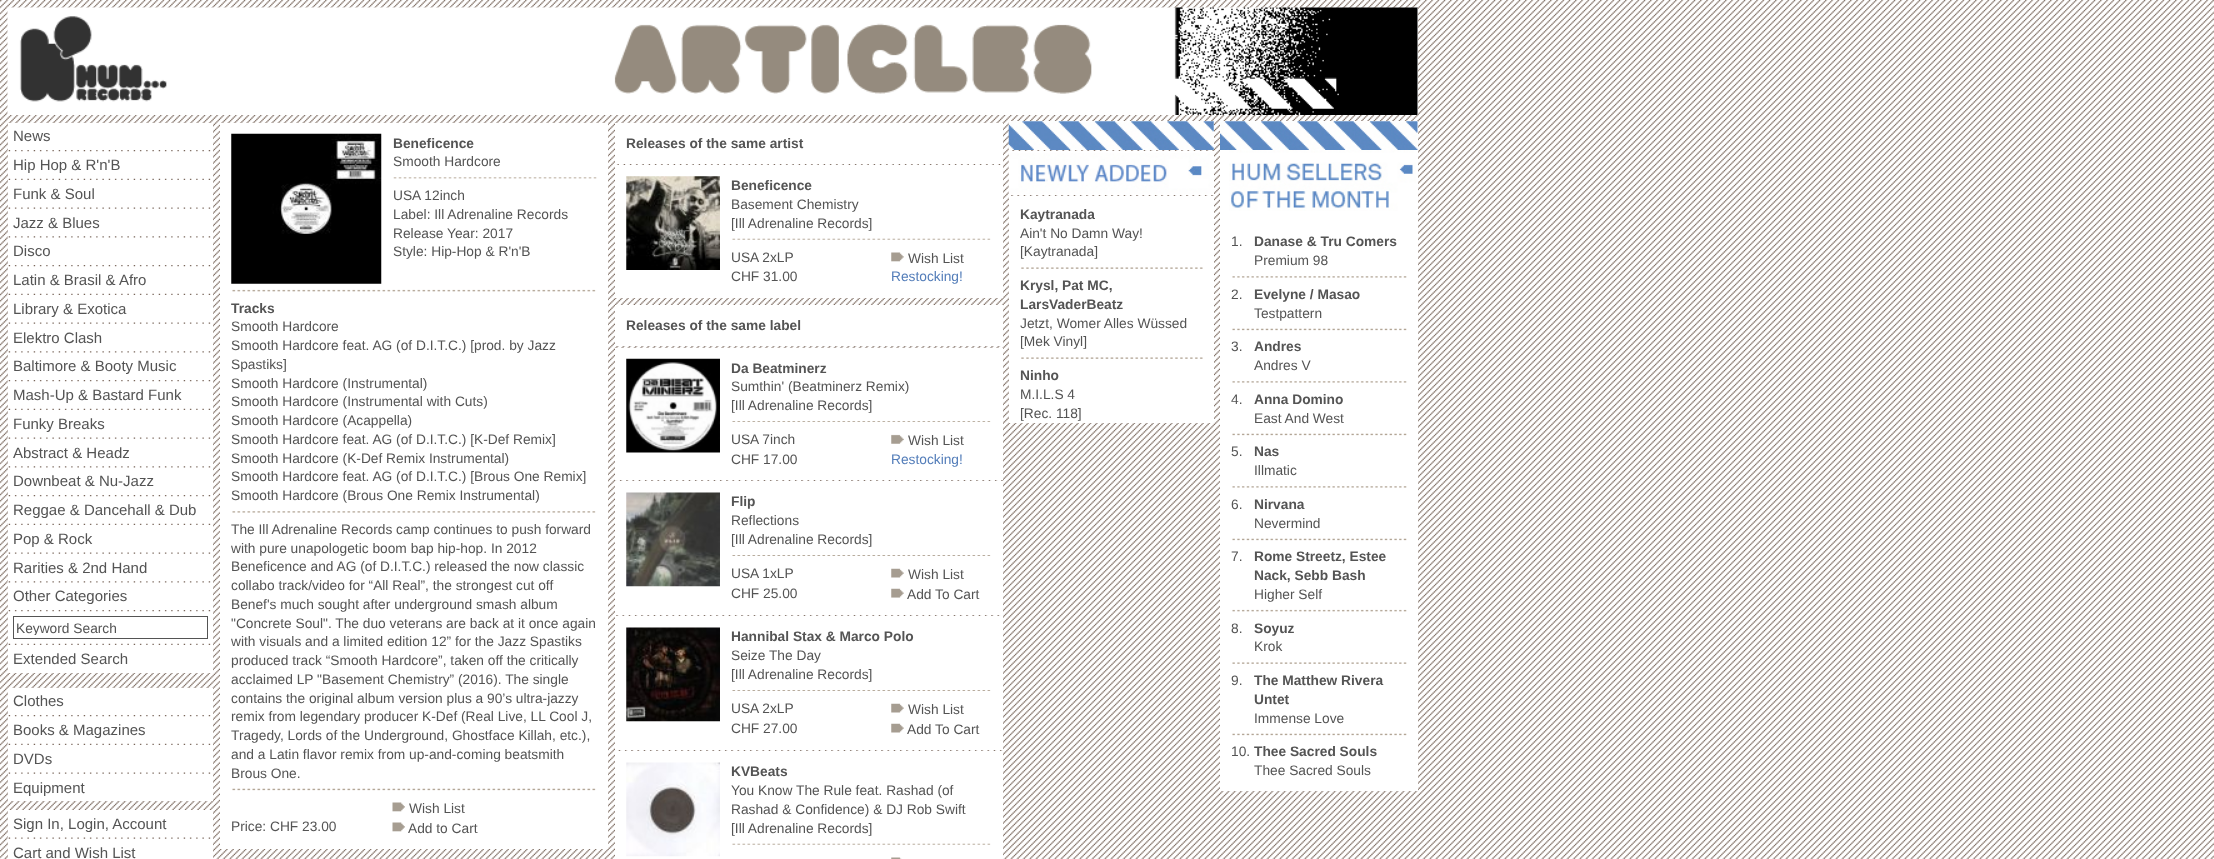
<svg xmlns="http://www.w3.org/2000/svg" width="2214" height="859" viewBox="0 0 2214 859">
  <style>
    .t1 { font: 15px Liberation Sans; fill: #545454; }
    .t2 { font: 13.75px Liberation Sans; fill: #545454; }
    .t3 { font: bold 13.75px Liberation Sans; fill: #545454; }
    .t4 { font: 13.75px Liberation Sans; fill: #537db9; }
  </style>
  <defs>
    <clipPath id="clip1"><rect x="16" y="620" width="188" height="15"/></clipPath>
  </defs>
  <rect width="100%" height="100%" fill="#fff"/>
  <image x="0" y="0" width="2214" height="859" href="images/1.png"/>
  <rect x="1417" y="8" width="1" height="107" fill="#fff"/>
  <image x="7" y="7" width="1411" height="108" href="images/2.png"/>
  <rect x="8" y="123" width="205" height="550" fill="#fff"/>
  <text x="13" y="141" class="t1">News</text>
  <image x="7" y="150" width="204" height="2" href="images/3.png"/>
  <text x="13" y="170" class="t1">Hip Hop &amp; R'n'B</text>
  <image x="8" y="178" width="203" height="2" href="images/4.png"/>
  <text x="13" y="199" class="t1">Funk &amp; Soul</text>
  <image x="7" y="207" width="204" height="2" href="images/5.png"/>
  <text x="13" y="228" class="t1">Jazz &amp; Blues</text>
  <image x="7" y="236" width="204" height="2" href="images/6.png"/>
  <text x="13" y="256" class="t1">Disco</text>
  <image x="8" y="265" width="203" height="2" href="images/7.png"/>
  <text x="13" y="285" class="t1">Latin &amp; Brasil &amp; Afro</text>
  <image x="7" y="293" width="204" height="2" href="images/8.png"/>
  <text x="13" y="314" class="t1">Library &amp; Exotica</text>
  <image x="7" y="322" width="204" height="2" href="images/9.png"/>
  <text x="13" y="343" class="t1">Elektro Clash</text>
  <image x="7" y="351" width="204" height="2" href="images/10.png"/>
  <text x="13" y="371" class="t1">Baltimore &amp; Booty Music</text>
  <image x="7" y="380" width="204" height="2" href="images/11.png"/>
  <text x="13" y="400" class="t1">Mash-Up &amp; Bastard Funk</text>
  <image x="8" y="408" width="203" height="2" href="images/4.png"/>
  <text x="13" y="429" class="t1">Funky Breaks</text>
  <image x="7" y="437" width="204" height="2" href="images/12.png"/>
  <text x="13" y="458" class="t1">Abstract &amp; Headz</text>
  <image x="7" y="466" width="204" height="2" href="images/13.png"/>
  <text x="13" y="486" class="t1">Downbeat &amp; Nu-Jazz</text>
  <image x="7" y="495" width="204" height="2" href="images/14.png"/>
  <text x="13" y="515" class="t1">Reggae &amp; Dancehall &amp; Dub</text>
  <image x="7" y="523" width="204" height="2" href="images/15.png"/>
  <text x="13" y="544" class="t1">Pop &amp; Rock</text>
  <image x="8" y="552" width="203" height="2" href="images/16.png"/>
  <text x="13" y="573" class="t1">Rarities &amp; 2nd Hand</text>
  <image x="7" y="581" width="204" height="2" href="images/17.png"/>
  <text x="13" y="601" class="t1">Other Categories</text>
  <image x="7" y="610" width="204" height="2" href="images/18.png"/>
  <rect x="13.5" y="616.5" width="194" height="22" fill="none" stroke="#545454"/>
  <g clip-path="url(#clip1)">
    <text x="16" y="633" class="t2">Keyword Search</text>
  </g>
  <image x="7" y="643" width="204" height="2" href="images/8.png"/>
  <text x="13" y="664" class="t1">Extended Search</text>
  <rect x="220" y="123" width="388" height="726" fill="#fff"/>
  <image x="231" y="133" width="151" height="151" href="images/19.png"/>
  <text x="393" y="148" class="t3">Beneficence</text>
  <text x="393" y="166" class="t2">Smooth Hardcore</text>
  <image x="393" y="177" width="204" height="2" href="images/20.png"/>
  <text x="393" y="200" class="t2">USA 12inch</text>
  <text x="393" y="219" class="t2">Label: Ill Adrenaline Records</text>
  <text x="393" y="238" class="t2">Release Year: 2017</text>
  <text x="393" y="256" class="t2">Style: Hip-Hop &amp; R'n'B</text>
  <image x="232" y="289" width="364" height="3" href="images/21.png"/>
  <text x="231" y="313" class="t3">Tracks</text>
  <text x="231" y="331" class="t2">Smooth Hardcore</text>
  <text x="231" y="350" class="t2">Smooth Hardcore feat. AG (of D.I.T.C.) [prod. by Jazz</text>
  <text x="231" y="369" class="t2">Spastiks]</text>
  <text x="231" y="388" class="t2">Smooth Hardcore (Instrumental)</text>
  <text x="231" y="406" class="t2">Smooth Hardcore (Instrumental with Cuts)</text>
  <text x="231" y="425" class="t2">Smooth Hardcore (Acappella)</text>
  <text x="231" y="444" class="t2">Smooth Hardcore feat. AG (of D.I.T.C.) [K-Def Remix]</text>
  <text x="231" y="463" class="t2">Smooth Hardcore (K-Def Remix Instrumental)</text>
  <text x="231" y="481" class="t2">Smooth Hardcore feat. AG (of D.I.T.C.) [Brous One Remix]</text>
  <text x="231" y="500" class="t2">Smooth Hardcore (Brous One Remix Instrumental)</text>
  <image x="232" y="511" width="364" height="2" href="images/22.png"/>
  <text x="231" y="534" class="t2">The Ill Adrenaline Records camp continues to push forward</text>
  <text x="231" y="553" class="t2">with pure unapologetic boom bap hip-hop. In 2012</text>
  <text x="231" y="571" class="t2">Beneficence and AG (of D.I.T.C.) released the now classic</text>
  <text x="231" y="590" class="t2">collabo track/video for “All Real”, the strongest cut off</text>
  <text x="231" y="609" class="t2">Benef's much sought after underground smash album</text>
  <text x="231" y="628" class="t2">"Concrete Soul". The duo veterans are back at it once again</text>
  <text x="231" y="646" class="t2">with visuals and a limited edition 12” for the Jazz Spastiks</text>
  <text x="231" y="665" class="t2">produced track “Smooth Hardcore”, taken off the critically</text>
  <text x="231" y="684" class="t2">acclaimed LP "Basement Chemistry” (2016). The single</text>
  <text x="231" y="703" class="t2">contains the original album version plus a 90’s ultra-jazzy</text>
  <text x="231" y="721" class="t2">remix from legendary producer K-Def (Real Live, LL Cool J,</text>
  <text x="231" y="740" class="t2">Tragedy, Lords of the Underground, Ghostface Killah, etc.),</text>
  <text x="231" y="759" class="t2">and a Latin flavor remix from up-and-coming beatsmith</text>
  <text x="231" y="778" class="t2">Brous One.</text>
  <image x="232" y="788" width="364" height="3" href="images/23.png"/>
  <image x="392" y="802" width="13" height="10" href="images/24.png"/>
  <text x="409" y="813" class="t2">Wish List</text>
  <text x="231" y="831" class="t2">Price: CHF 23.00</text>
  <image x="392" y="822" width="13" height="10" href="images/24.png"/>
  <text x="408" y="833" class="t2">Add to Cart</text>
  <rect x="615" y="123" width="388" height="41" fill="#fff"/>
  <text x="626" y="148" class="t3">Releases of the same artist</text>
  <rect x="615" y="165" width="388" height="133" fill="#fff"/>
  <image x="626" y="176" width="94" height="94" href="images/25.png"/>
  <text x="731" y="190" class="t3">Beneficence</text>
  <text x="731" y="209" class="t2">Basement Chemistry</text>
  <text x="731" y="228" class="t2">[Ill Adrenaline Records]</text>
  <image x="732" y="238" width="259" height="2" href="images/26.png"/>
  <text x="731" y="262" class="t2">USA 2xLP</text>
  <image x="891" y="252" width="13" height="10" href="images/27.png"/>
  <text x="908" y="263" class="t2">Wish List</text>
  <text x="731" y="281" class="t2">CHF 31.00</text>
  <text x="891" y="281" class="t4">Restocking!</text>
  <rect x="615" y="305" width="388" height="41" fill="#fff"/>
  <text x="626" y="330" class="t3">Releases of the same label</text>
  <rect x="615" y="348" width="388" height="132" fill="#fff"/>
  <image x="626" y="358" width="94" height="95" href="images/28.png"/>
  <text x="731" y="373" class="t3">Da Beatminerz</text>
  <text x="731" y="391" class="t2">Sumthin' (Beatminerz Remix)</text>
  <text x="731" y="410" class="t2">[Ill Adrenaline Records]</text>
  <image x="732" y="421" width="259" height="1" href="images/29.png"/>
  <text x="731" y="444" class="t2">USA 7inch</text>
  <image x="891" y="434" width="13" height="10" href="images/30.png"/>
  <text x="908" y="445" class="t2">Wish List</text>
  <text x="731" y="464" class="t2">CHF 17.00</text>
  <text x="891" y="464" class="t4">Restocking!</text>
  <rect x="615" y="481" width="388" height="134" fill="#fff"/>
  <image x="626" y="492" width="94" height="95" href="images/31.png"/>
  <text x="731" y="506" class="t3">Flip</text>
  <text x="731" y="525" class="t2">Reflections</text>
  <text x="731" y="544" class="t2">[Ill Adrenaline Records]</text>
  <image x="732" y="555" width="259" height="1" href="images/32.png"/>
  <text x="731" y="578" class="t2">USA 1xLP</text>
  <image x="891" y="568" width="13" height="10" href="images/33.png"/>
  <text x="908" y="579" class="t2">Wish List</text>
  <text x="731" y="598" class="t2">CHF 25.00</text>
  <image x="891" y="588" width="13" height="10" href="images/34.png"/>
  <text x="907" y="599" class="t2">Add To Cart</text>
  <rect x="615" y="616" width="388" height="134" fill="#fff"/>
  <image x="626" y="627" width="94" height="95" href="images/35.png"/>
  <text x="731" y="641" class="t3">Hannibal Stax &amp; Marco Polo</text>
  <text x="731" y="660" class="t2">Seize The Day</text>
  <text x="731" y="679" class="t2">[Ill Adrenaline Records]</text>
  <image x="732" y="690" width="259" height="1" href="images/32.png"/>
  <text x="731" y="713" class="t2">USA 2xLP</text>
  <image x="891" y="703" width="13" height="10" href="images/33.png"/>
  <text x="908" y="714" class="t2">Wish List</text>
  <text x="731" y="733" class="t2">CHF 27.00</text>
  <image x="891" y="723" width="13" height="10" href="images/33.png"/>
  <text x="907" y="734" class="t2">Add To Cart</text>
  <rect x="615" y="751" width="388" height="108" fill="#fff"/>
  <image x="626" y="762" width="94" height="95" href="images/36.png"/>
  <text x="731" y="776" class="t3">KVBeats</text>
  <text x="731" y="795" class="t2">You Know The Rule feat. Rashad (of</text>
  <text x="731" y="814" class="t2">Rashad &amp; Confidence) &amp; DJ Rob Swift</text>
  <text x="731" y="833" class="t2">[Ill Adrenaline Records]</text>
  <image x="732" y="843" width="259" height="2" href="images/26.png"/>
  <image x="891" y="857" width="11" height="2" href="images/37.png"/>
  <rect x="1009" y="121" width="205" height="29" fill="#fff"/>
  <image x="1008" y="121" width="206" height="29" href="images/38.png"/>
  <rect x="1009" y="151" width="205" height="44" fill="#fff"/>
  <image x="1008" y="153" width="202" height="41" href="images/39.png"/>
  <rect x="1009" y="196" width="205" height="227" fill="#fff"/>
  <text x="1020" y="219" class="t3">Kaytranada</text>
  <text x="1020" y="238" class="t2">Ain't No Damn Way!</text>
  <text x="1020" y="256" class="t2">[Kaytranada]</text>
  <image x="1021" y="267" width="182" height="2" href="images/40.png"/>
  <text x="1020" y="290" class="t3">Krysl, Pat MC,</text>
  <text x="1020" y="309" class="t3">LarsVaderBeatz</text>
  <text x="1020" y="328" class="t2">Jetzt, Womer Alles Wüssed</text>
  <text x="1020" y="346" class="t2">[Mek Vinyl]</text>
  <image x="1021" y="357" width="182" height="2" href="images/40.png"/>
  <text x="1020" y="380" class="t3">Ninho</text>
  <text x="1020" y="399" class="t2">M.I.L.S 4</text>
  <text x="1020" y="418" class="t2">[Rec. 118]</text>
  <rect x="1220" y="121" width="198" height="670" fill="#fff"/>
  <image x="1220" y="121" width="198" height="29" href="images/41.png"/>
  <image x="1229" y="150" width="187" height="61" href="images/42.png"/>
  <text x="1231" y="246" class="t2">1.</text>
  <text x="1254" y="246" class="t3">Danase &amp; Tru Comers</text>
  <text x="1254" y="265" class="t2">Premium 98</text>
  <image x="1232" y="276" width="175" height="2" href="images/43.png"/>
  <text x="1231" y="299" class="t2">2.</text>
  <text x="1254" y="299" class="t3">Evelyne / Masao</text>
  <text x="1254" y="318" class="t2">Testpattern</text>
  <image x="1232" y="328" width="175" height="3" href="images/44.png"/>
  <text x="1231" y="351" class="t2">3.</text>
  <text x="1254" y="351" class="t3">Andres</text>
  <text x="1254" y="370" class="t2">Andres V</text>
  <image x="1232" y="381" width="175" height="2" href="images/43.png"/>
  <text x="1231" y="404" class="t2">4.</text>
  <text x="1254" y="404" class="t3">Anna Domino</text>
  <text x="1254" y="423" class="t2">East And West</text>
  <image x="1232" y="433" width="175" height="3" href="images/44.png"/>
  <text x="1231" y="456" class="t2">5.</text>
  <text x="1254" y="456" class="t3">Nas</text>
  <text x="1254" y="475" class="t2">Illmatic</text>
  <image x="1232" y="486" width="175" height="2" href="images/43.png"/>
  <text x="1231" y="509" class="t2">6.</text>
  <text x="1254" y="509" class="t3">Nirvana</text>
  <text x="1254" y="528" class="t2">Nevermind</text>
  <image x="1232" y="538" width="175" height="3" href="images/44.png"/>
  <text x="1231" y="561" class="t2">7.</text>
  <text x="1254" y="561" class="t3">Rome Streetz, Estee</text>
  <text x="1254" y="580" class="t3">Nack, Sebb Bash</text>
  <text x="1254" y="599" class="t2">Higher Self</text>
  <image x="1232" y="609" width="175" height="3" href="images/45.png"/>
  <text x="1231" y="633" class="t2">8.</text>
  <text x="1254" y="633" class="t3">Soyuz</text>
  <text x="1254" y="651" class="t2">Krok</text>
  <image x="1232" y="662" width="175" height="2" href="images/46.png"/>
  <text x="1231" y="685" class="t2">9.</text>
  <text x="1254" y="685" class="t3">The Matthew Rivera</text>
  <text x="1254" y="704" class="t3">Untet</text>
  <text x="1254" y="723" class="t2">Immense Love</text>
  <image x="1232" y="733" width="175" height="3" href="images/44.png"/>
  <text x="1231" y="756" class="t2">10.</text>
  <text x="1254" y="756" class="t3">Thee Sacred Souls</text>
  <text x="1254" y="775" class="t2">Thee Sacred Souls</text>
  <rect x="8" y="688" width="205" height="113" fill="#fff"/>
  <text x="13" y="706" class="t1">Clothes</text>
  <image x="8" y="715" width="203" height="2" href="images/7.png"/>
  <text x="13" y="735" class="t1">Books &amp; Magazines</text>
  <image x="7" y="743" width="204" height="2" href="images/8.png"/>
  <text x="13" y="764" class="t1">DVDs</text>
  <image x="7" y="772" width="204" height="2" href="images/9.png"/>
  <text x="13" y="793" class="t1">Equipment</text>
  <rect x="8" y="810" width="205" height="49" fill="#fff"/>
  <text x="13" y="829" class="t1">Sign In, Login, Account</text>
  <image x="7" y="837" width="204" height="2" href="images/12.png"/>
  <text x="13" y="858" class="t1">Cart and Wish List</text>
</svg>
